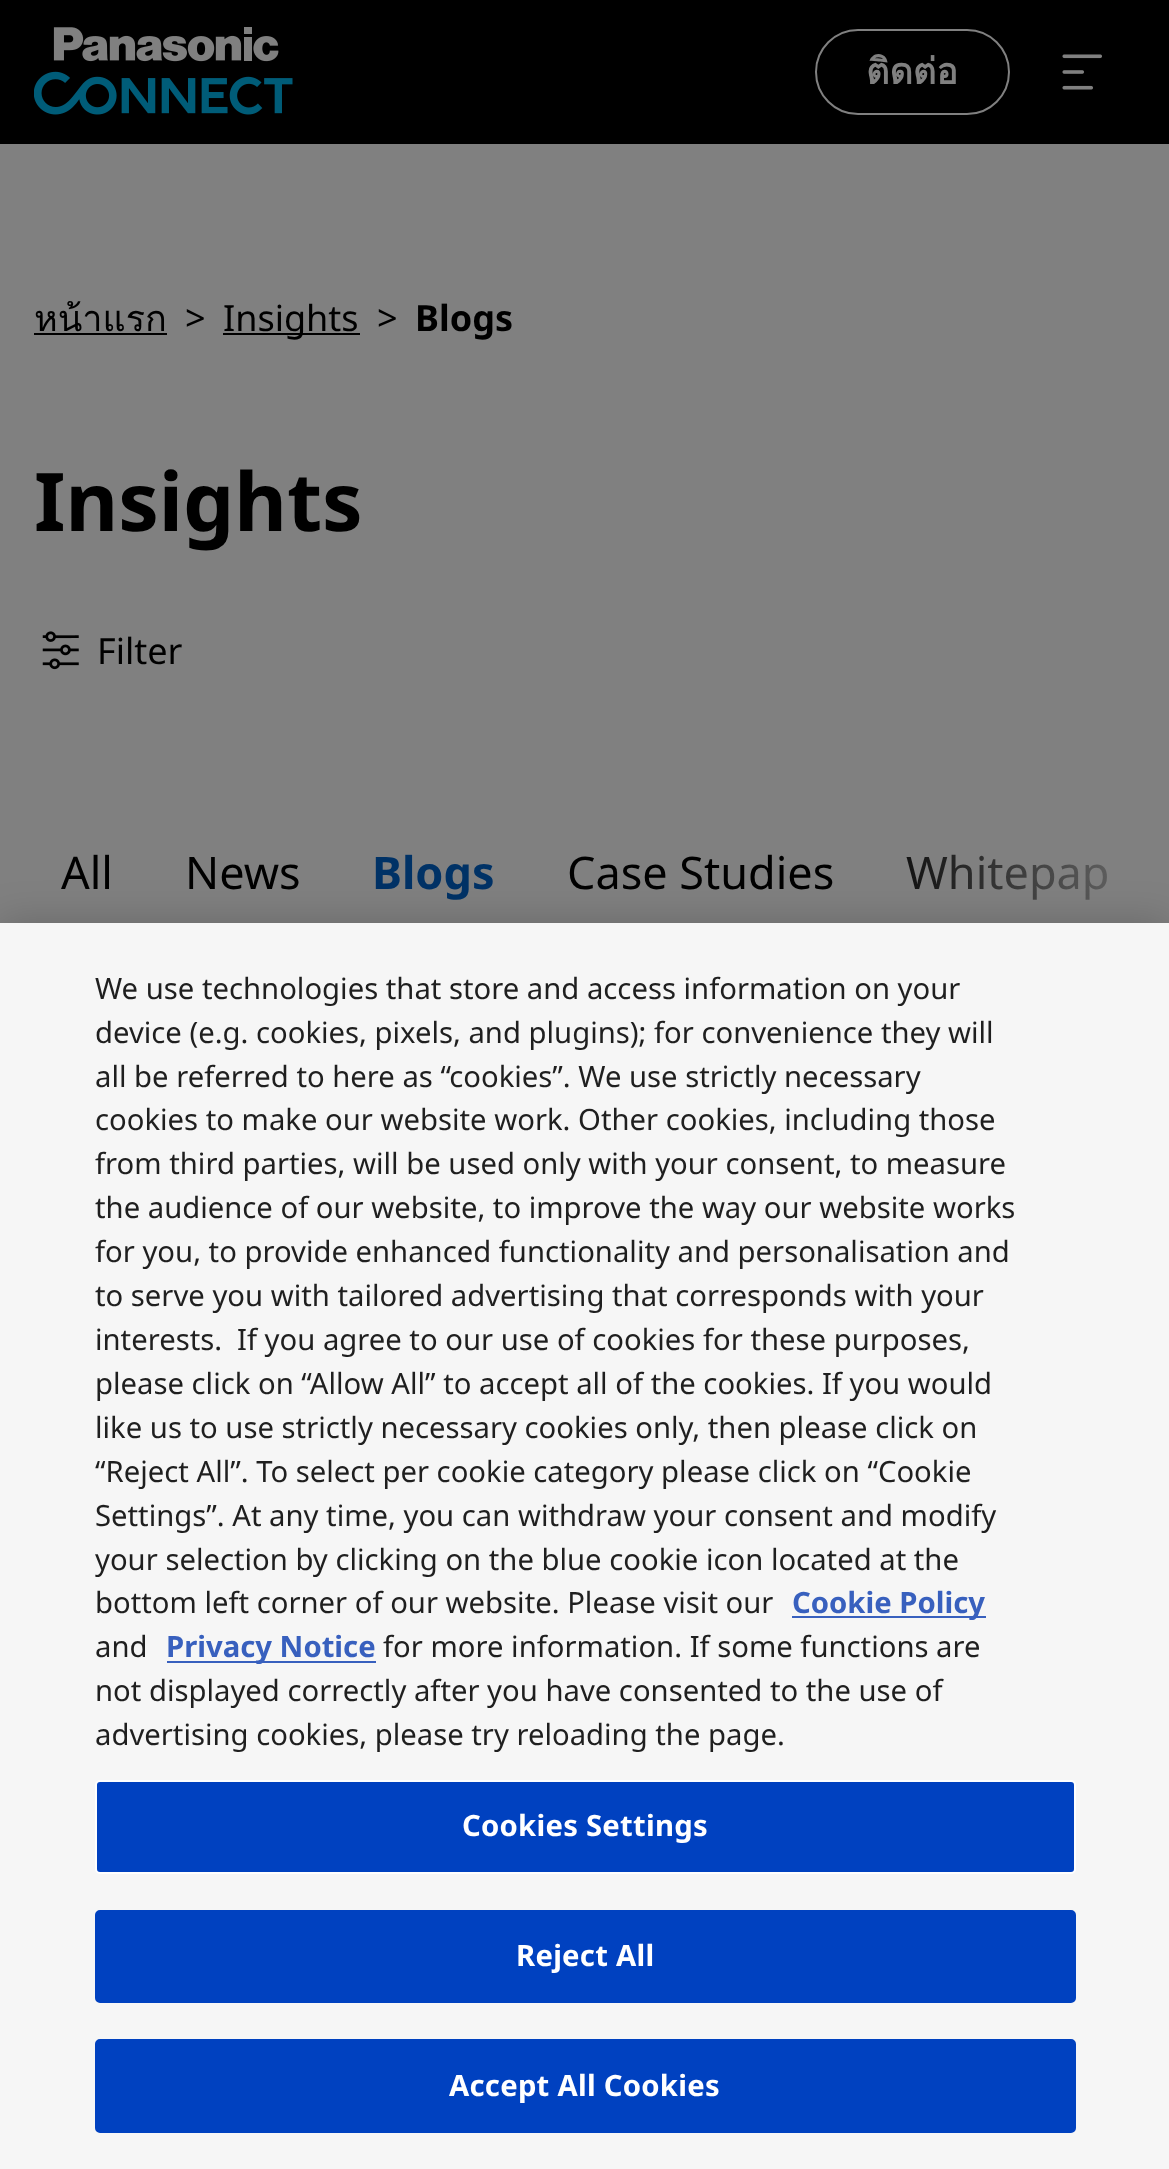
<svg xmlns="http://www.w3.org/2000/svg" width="1169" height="2169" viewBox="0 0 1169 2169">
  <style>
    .t1 { font: bold 36px Loma; fill: #808080; }
    .t2 { font: 36px Loma; fill: #000; }
    .t3 { font: 36px Noto Sans; fill: #000; }
    .t4 { font: bold 36px Noto Sans; fill: #000; }
    .t5 { font: bold 81px Noto Sans; fill: #000; }
    .t6 { font: 45px Noto Sans; fill: #000; }
    .t7 { font: bold 45px Noto Sans; fill: #003266; }
    .t8 { font: 29.25px Noto Sans; fill: #1f1f1f; }
    .t9 { font: bold 29.25px Noto Sans; fill: #3860be; }
    .t10 { font: bold 29.25px Noto Sans; letter-spacing: 0.25px; fill: #fff; }
  </style>
  <defs>
    <linearGradient id="g1" gradientUnits="userSpaceOnUse" x1="853" y1="893" x2="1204" y2="893"><stop offset="0" stop-color="#808080" stop-opacity="0"/><stop offset="1" stop-color="#808080"/></linearGradient>
    <clipPath id="clip1"><rect x="95" y="968" width="929" height="789"/></clipPath>
  </defs>
  <rect width="100%" height="100%" fill="#808080"/>
  <rect x="0" y="0" width="1169" height="144" fill="#000"/>
  <image x="34" y="27" width="259" height="88" href="images/1.png"/>
  <rect x="816" y="30" width="193" height="84" rx="42" fill="none" stroke="#808080" stroke-width="2"/>
  <text x="866" y="84" class="t1">ติดต่อ</text>
  <image x="1062" y="54" width="40" height="36" href="images/2.png"/>
  <text x="34" y="331" class="t2">หน้าแรก</text>
  <rect x="34" y="333" width="133" height="2" fill="#000"/>
  <text x="185" y="331" class="t3">&gt;</text>
  <rect x="223" y="333" width="137" height="2" fill="#000"/>
  <text x="223" y="331" class="t3">Insights</text>
  <text x="377" y="331" class="t3">&gt;</text>
  <text x="415" y="331" class="t4">Blogs</text>
  <text x="34" y="531" class="t5">Insights</text>
  <image x="42" y="631" width="37" height="39" href="images/3.png"/>
  <text x="97" y="664" class="t3">Filter</text>
  <text x="61" y="889" class="t6">All</text>
  <text x="185" y="889" class="t6">News</text>
  <text x="372" y="889" class="t7">Blogs</text>
  <text x="567" y="889" class="t6">Case Studies</text>
  <text x="906" y="889" class="t6">Whitepap</text>
  <rect x="907" y="854" width="201" height="46" fill="url(#g1)"/>
  <rect x="0" y="923" width="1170" height="1246" fill="#00000033" filter="blur(20px)"/>
  <rect x="0" y="923" width="1169" height="1246" fill="#f6f6f6"/>
  <text x="95" y="999" class="t8">We use technologies that store and access information on your</text>
  <text x="95" y="1043" class="t8">device (e.g. cookies, pixels, and plugins); for convenience they will</text>
  <text x="95" y="1087" class="t8">all be referred to here as “cookies”. We use strictly necessary</text>
  <text x="95" y="1130" class="t8">cookies to make our website work. Other cookies, including those</text>
  <text x="95" y="1174" class="t8">from third parties, will be used only with your consent, to measure</text>
  <text x="95" y="1218" class="t8">the audience of our website, to improve the way our website works</text>
  <text x="95" y="1262" class="t8">for you, to provide enhanced functionality and personalisation and</text>
  <text x="95" y="1306" class="t8">to serve you with tailored advertising that corresponds with your</text>
  <text x="95" y="1350" class="t8">interests.</text>
  <text x="237" y="1350" class="t8">If you agree to our use of cookies for these purposes,</text>
  <text x="95" y="1394" class="t8">please click on “Allow All” to accept all of the cookies. If you would</text>
  <text x="95" y="1438" class="t8">like us to use strictly necessary cookies only, then please click on</text>
  <text x="95" y="1482" class="t8">“Reject All”. To select per cookie category please click on “Cookie</text>
  <text x="95" y="1526" class="t8">Settings”. At any time, you can withdraw your consent and modify</text>
  <g clip-path="url(#clip1)">
    <text x="95" y="1570" class="t8">your selection by clicking on the blue cookie icon located at the</text>
  </g>
  <text x="95" y="1613" class="t8">bottom left corner of our website. Please visit our</text>
  <rect x="792" y="1616" width="194" height="2" fill="#3860be"/>
  <text x="792" y="1613" class="t9">Cookie Policy</text>
  <text x="95" y="1657" class="t8">and</text>
  <rect x="167" y="1661" width="209" height="2" fill="#3860be"/>
  <text x="166" y="1657" class="t9">Privacy Notice</text>
  <text x="383" y="1657" class="t8">for more information. If some functions are</text>
  <text x="95" y="1701" class="t8">not displayed correctly after you have consented to the use of</text>
  <text x="95" y="1745" class="t8">advertising cookies, please try reloading the page.</text>
  <rect x="96" y="1781" width="979" height="92" rx="4" fill="#0041c0" stroke="#fff" stroke-width="2"/>
  <text x="462" y="1836" class="t10">Cookies Settings</text>
  <rect x="96" y="1911" width="979" height="91" rx="4" fill="#0041c0" stroke="#0041c0" stroke-width="2"/>
  <text x="516" y="1966" class="t10">Reject All</text>
  <rect x="96" y="2040" width="979" height="92" rx="4" fill="#0041c0" stroke="#0041c0" stroke-width="2"/>
  <text x="449" y="2096" class="t10">Accept All Cookies</text>
</svg>
